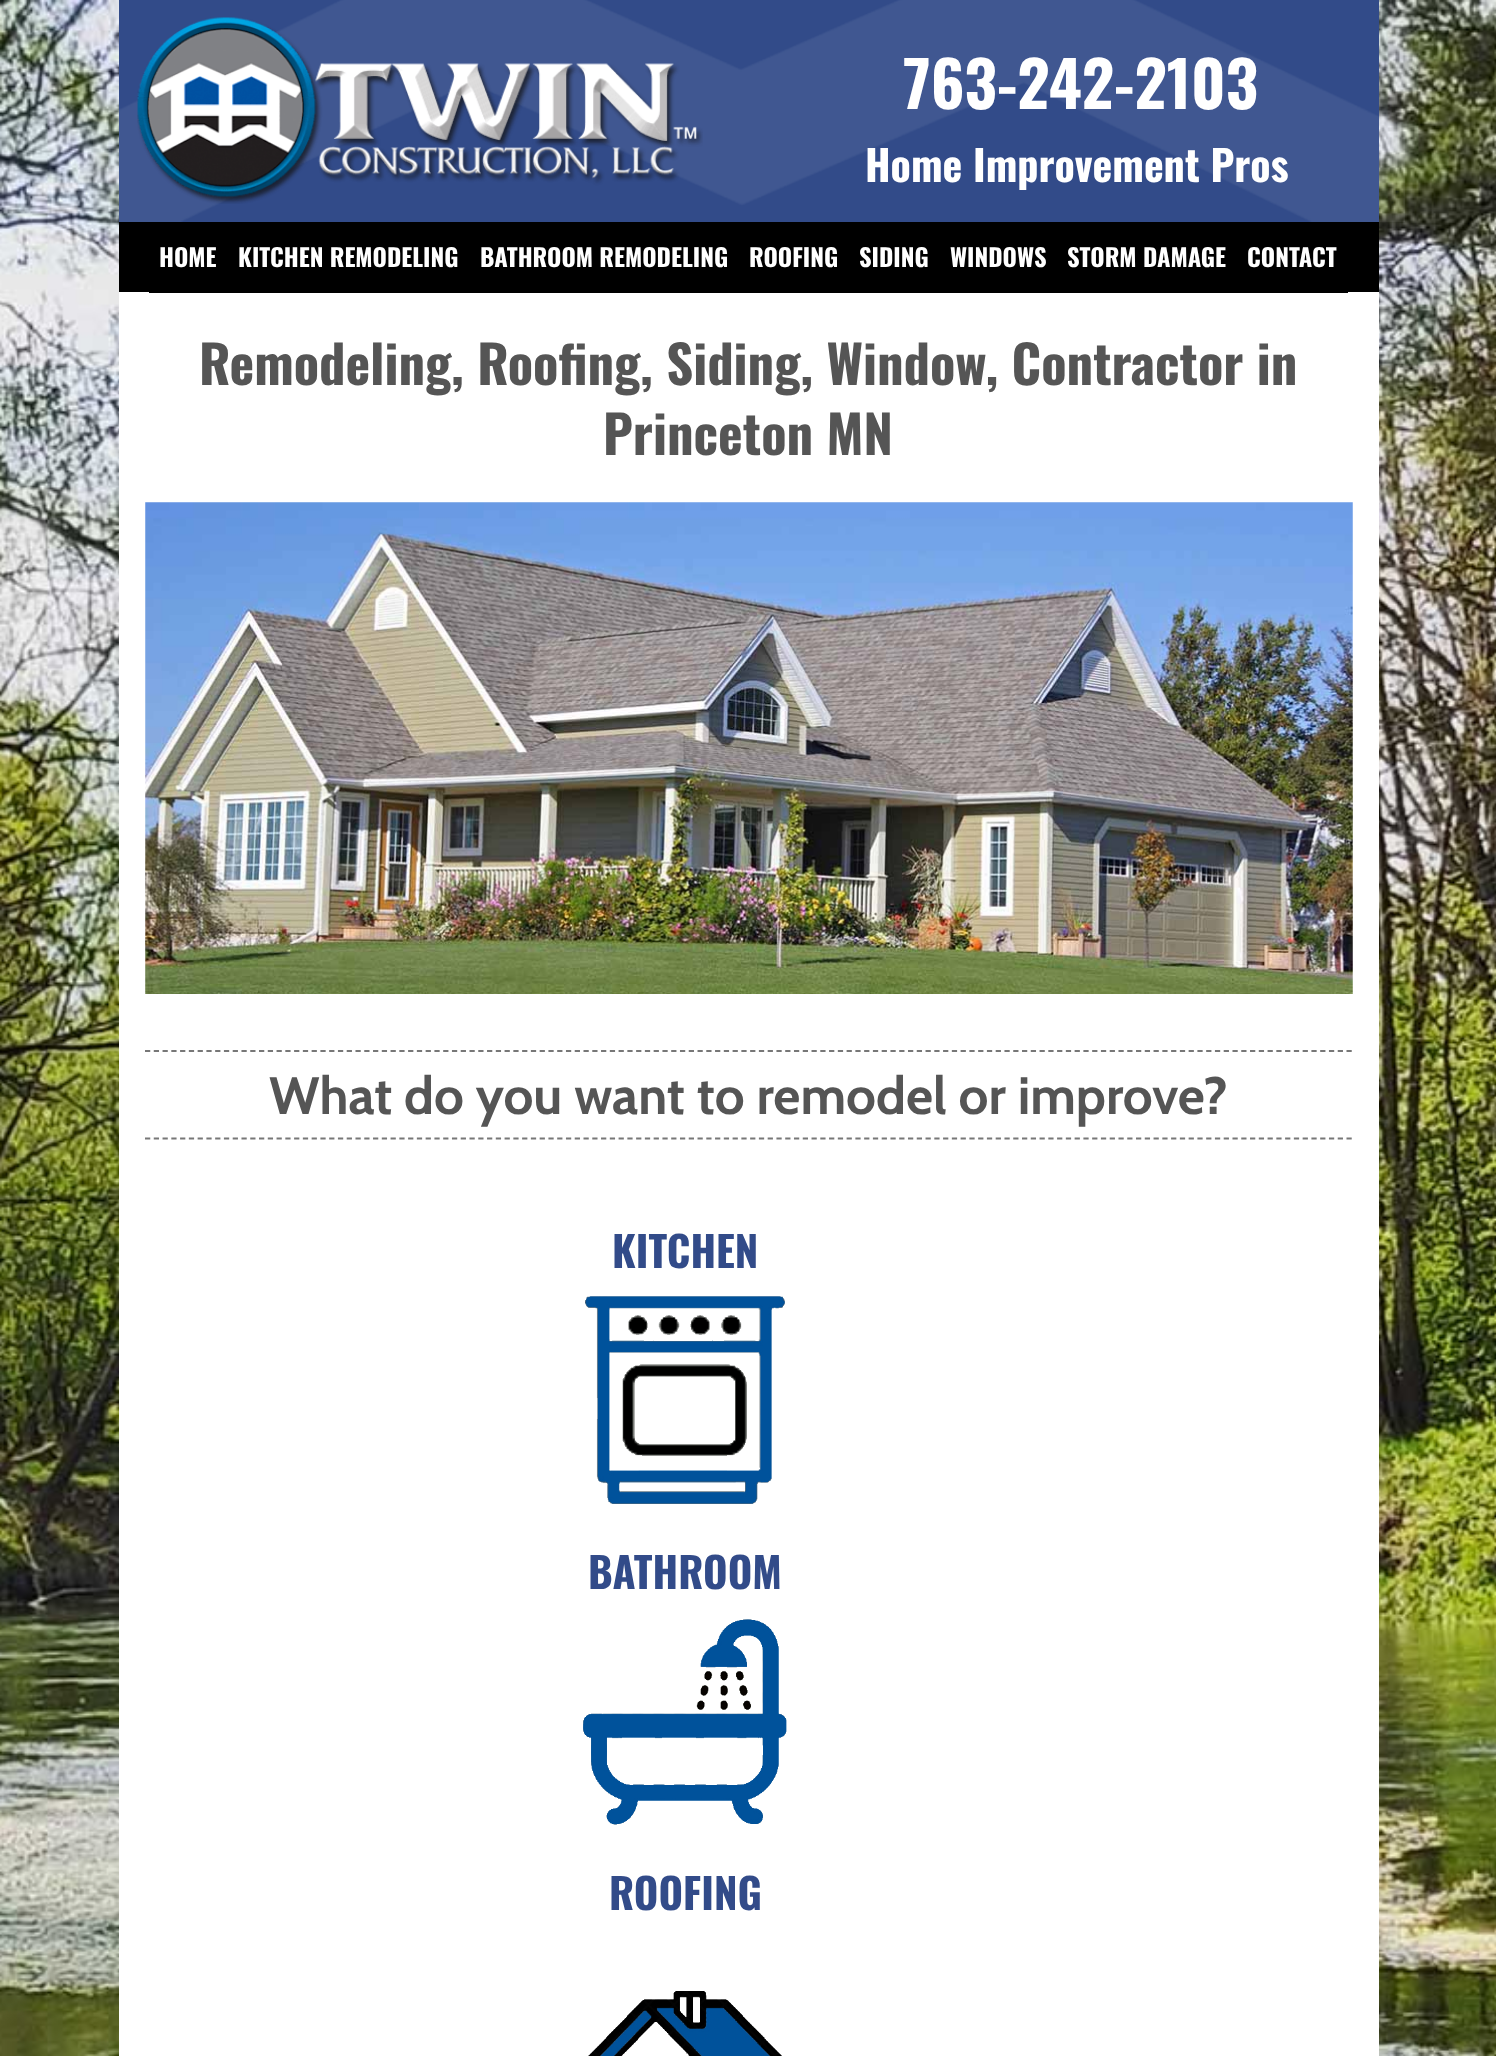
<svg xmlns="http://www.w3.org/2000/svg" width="1496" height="2056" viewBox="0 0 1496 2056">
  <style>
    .t1 { font: bold 63px Oswald; fill: #fff; }
    .t2 { font: bold 42px Oswald; fill: #fff; }
    .t3 { font: bold 24.5px Oswald; fill: #fff; }
    .t4 { font: bold 52.5px Oswald; fill: #555; }
    .t5 { font: bold 52.5px Cabin; fill: #555; }
    .t6 { font: bold 42px Oswald; fill: #324b89; }
  </style>
  <rect width="100%" height="100%" fill="#fff"/>
  <image x="0" y="0" width="1496" height="2056" href="images/1.png"/>
  <rect x="119" y="0" width="1260" height="222" fill="#324b89"/>
  <image x="93" y="0" width="1312" height="222" href="images/2.png"/>
  <image x="137" y="17" width="566" height="187" href="images/3.png"/>
  <text x="903" y="109" class="t1">763-242-2103</text>
  <text x="865" y="182" class="t2">Home Improvement Pros</text>
  <rect x="119" y="222" width="1260" height="70" fill="#000"/>
  <rect x="119" y="292" width="1260" height="1764" fill="#fff"/>
  <rect x="149" y="292" width="1199" height="1" fill="#000"/>
  <text x="159" y="267" class="t3">HOME</text>
  <text x="238" y="267" class="t3">KITCHEN REMODELING</text>
  <text x="480" y="267" class="t3">BATHROOM REMODELING</text>
  <text x="749" y="267" class="t3">ROOFING</text>
  <text x="859" y="267" class="t3">SIDING</text>
  <text x="950" y="267" class="t3">WINDOWS</text>
  <text x="1067" y="267" class="t3">STORM DAMAGE</text>
  <text x="1247" y="267" class="t3">CONTACT</text>
  <text x="199" y="385" class="t4">Remodeling, Roofing, Siding, Window, Contractor in</text>
  <text x="603" y="455" class="t4">Princeton MN</text>
  <image x="145" y="502" width="1208" height="492" href="images/4.png"/>
  <path d="M145 1051H1353" fill="none" stroke="#777" stroke-width="1.8" stroke-dasharray="5.25 3.52"/>
  <path d="M145 1138.5H1353" fill="none" stroke="#777" stroke-width="1.8" stroke-dasharray="5.25 3.52"/>
  <text x="269" y="1114" class="t5">What do you want to remodel or improve?</text>
  <text x="612" y="1268" class="t6">KITCHEN</text>
  <image x="585" y="1296" width="200" height="208" href="images/5.png"/>
  <text x="588" y="1589" class="t6">BATHROOM</text>
  <image x="583" y="1619" width="204" height="206" href="images/6.png"/>
  <text x="609" y="1910" class="t6">ROOFING</text>
  <image x="588" y="1991" width="194" height="65" href="images/7.png"/>
</svg>
